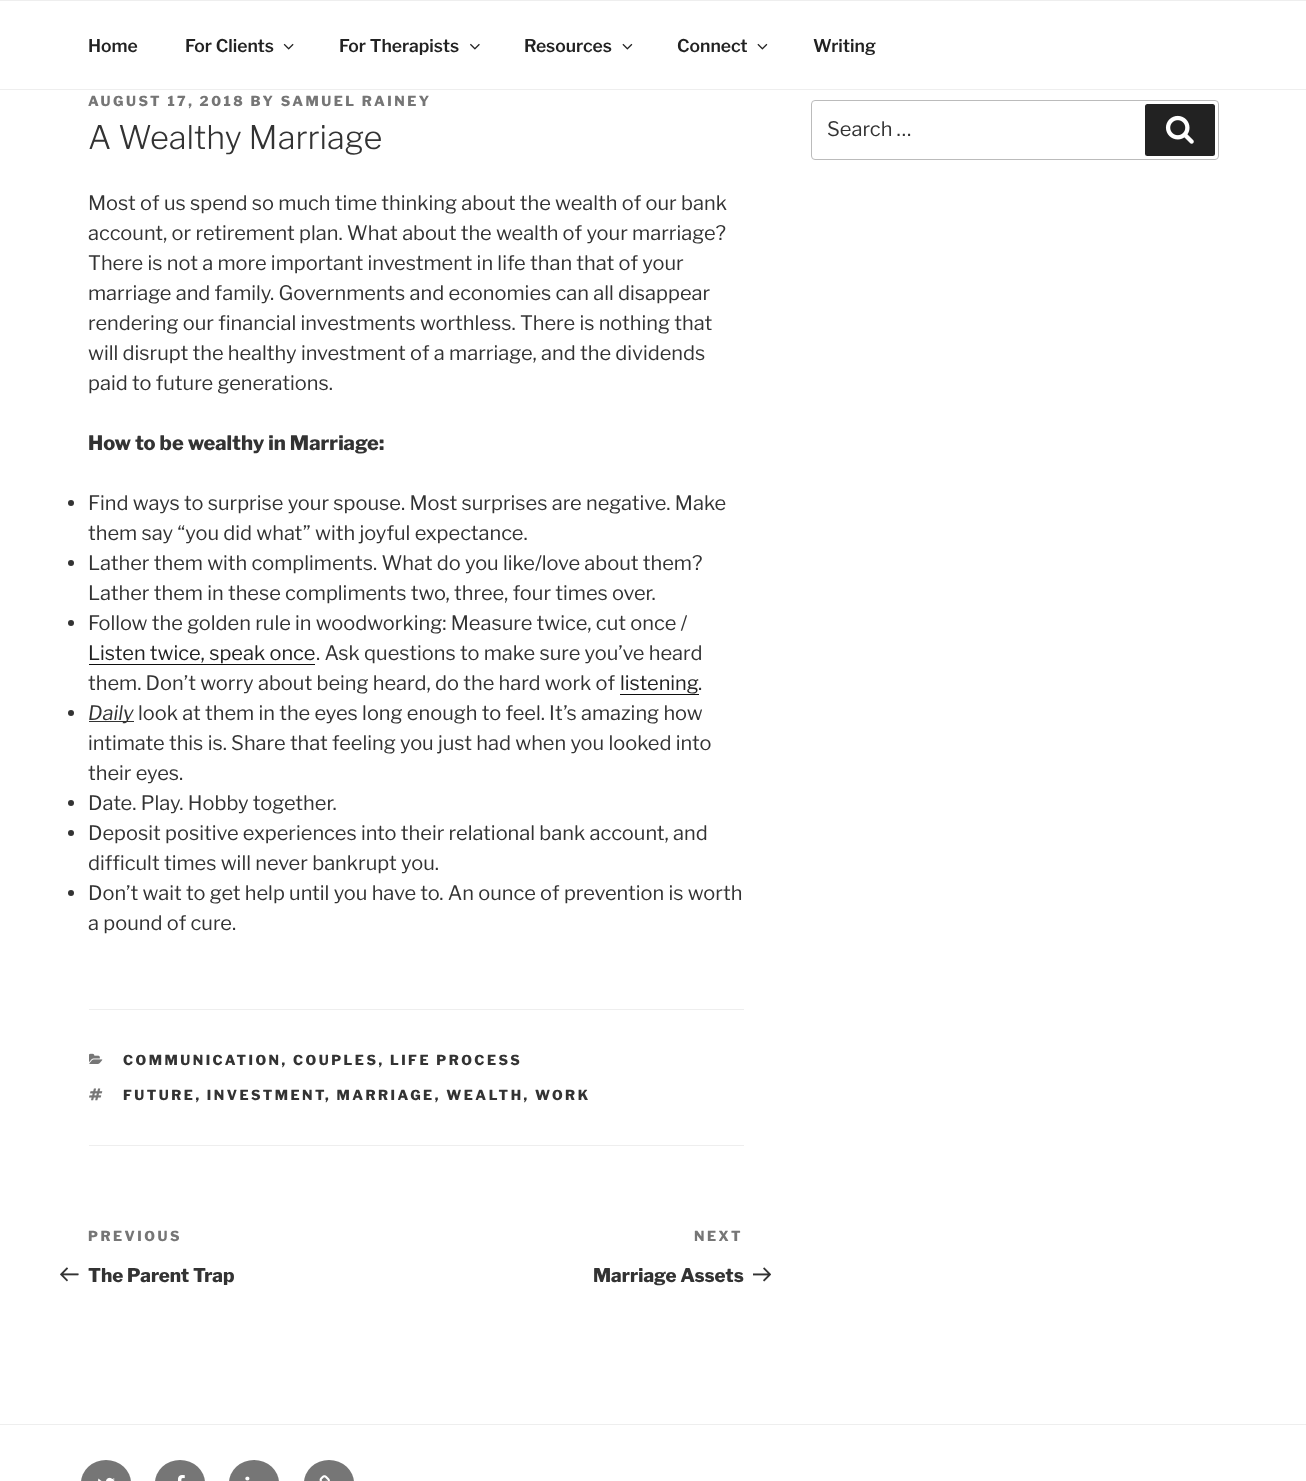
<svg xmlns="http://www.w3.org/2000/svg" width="1306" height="1481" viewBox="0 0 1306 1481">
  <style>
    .t1 { font: 600 17.5px Libre Franklin; fill: #222; }
    .t2 { font: 800 13.75px Libre Franklin; letter-spacing: 2.5px; fill: #767676; }
    .t3 { font: 300 32.5px Libre Franklin; fill: #333; }
    .t4 { font: 20px Libre Franklin; fill: #333; }
    .t5 { font: 800 20px Libre Franklin; fill: #333; }
    .t6 { font: 20px Libre Franklin; fill: #222; }
    .t7 { font: italic 20px Libre Franklin; fill: #333; }
    .t8 { font: 800 13.75px Libre Franklin; letter-spacing: 2.5px; fill: #333; }
    .t9 { font: 800 18.75px Libre Franklin; fill: #333; }
  </style>
  <rect width="100%" height="100%" fill="#fff"/>
  <rect x="0" y="0" width="1306" height="1" fill="#eee"/>
  <rect x="0" y="89" width="1306" height="1" fill="#eee"/>
  <text x="88" y="52" class="t1">Home</text>
  <text x="185" y="52" class="t1">For Clients</text>
  <image x="283" y="43" width="11" height="7" href="images/1.png"/>
  <text x="339" y="52" class="t1">For Therapists</text>
  <image x="470" y="43" width="10" height="7" href="images/2.png"/>
  <text x="524" y="52" class="t1">Resources</text>
  <image x="622" y="43" width="11" height="7" href="images/3.png"/>
  <text x="677" y="52" class="t1">Connect</text>
  <image x="757" y="43" width="11" height="7" href="images/3.png"/>
  <text x="813" y="52" class="t1">Writing</text>
  <text x="88" y="106" class="t2">AUGUST 17, 2018 BY SAMUEL RAINEY</text>
  <text x="88" y="149" class="t3">A Wealthy Marriage</text>
  <text x="88" y="210" class="t4">Most of us spend so much time thinking about the wealth of our bank</text>
  <text x="88" y="240" class="t4">account, or retirement plan. What about the wealth of your marriage?</text>
  <text x="88" y="270" class="t4">There is not a more important investment in life than that of your</text>
  <text x="88" y="300" class="t4">marriage and family. Governments and economies can all disappear</text>
  <text x="88" y="330" class="t4">rendering our financial investments worthless. There is nothing that</text>
  <text x="88" y="360" class="t4">will disrupt the healthy investment of a marriage, and the dividends</text>
  <text x="88" y="390" class="t4">paid to future generations.</text>
  <text x="88" y="450" class="t5">How to be wealthy in Marriage:</text>
  <circle cx="71" cy="503" r="3" fill="#333"/>
  <text x="88" y="510" class="t4">Find ways to surprise your spouse. Most surprises are negative. Make</text>
  <text x="88" y="540" class="t4">them say “you did what” with joyful expectance.</text>
  <circle cx="71" cy="563" r="3" fill="#333"/>
  <text x="88" y="570" class="t4">Lather them with compliments. What do you like/love about them?</text>
  <text x="88" y="600" class="t4">Lather them in these compliments two, three, four times over.</text>
  <circle cx="71" cy="623" r="3" fill="#333"/>
  <text x="88" y="630" class="t4">Follow the golden rule in woodworking: Measure twice, cut once /</text>
  <text x="88" y="660" class="t6">Listen twice, speak once</text>
  <rect x="89" y="664" width="226" height="1" fill="#0f0f0f"/>
  <text x="316" y="660" class="t4">. Ask questions to make sure you’ve heard</text>
  <text x="88" y="690" class="t4">them. Don’t worry about being heard, do the hard work of</text>
  <text x="620" y="690" class="t6">listening</text>
  <rect x="620" y="694" width="79" height="1" fill="#0f0f0f"/>
  <text x="698" y="690" class="t4">.</text>
  <circle cx="71" cy="713" r="3" fill="#333"/>
  <rect x="89" y="721" width="45" height="1" fill="#333"/>
  <text x="88" y="720" class="t7">Daily</text>
  <text x="138" y="720" class="t4">look at them in the eyes long enough to feel. It’s amazing how</text>
  <text x="88" y="750" class="t4">intimate this is. Share that feeling you just had when you looked into</text>
  <text x="88" y="780" class="t4">their eyes.</text>
  <circle cx="71" cy="803" r="3" fill="#333"/>
  <text x="88" y="810" class="t4">Date. Play. Hobby together.</text>
  <circle cx="71" cy="833" r="3" fill="#333"/>
  <text x="88" y="840" class="t4">Deposit positive experiences into their relational bank account, and</text>
  <text x="88" y="870" class="t4">difficult times will never bankrupt you.</text>
  <circle cx="71" cy="893" r="3" fill="#333"/>
  <text x="88" y="900" class="t4">Don’t wait to get help until you have to. An ounce of prevention is worth</text>
  <text x="88" y="930" class="t4">a pound of cure.</text>
  <rect x="89" y="1009" width="655" height="1" fill="#eee"/>
  <rect x="89" y="1145" width="655" height="1" fill="#eee"/>
  <image x="89" y="1053" width="14" height="11" href="images/4.png"/>
  <text x="123" y="1065" class="t8">COMMUNICATION, COUPLES, LIFE PROCESS</text>
  <image x="89" y="1088" width="14" height="13" href="images/5.png"/>
  <text x="123" y="1100" class="t8">FUTURE, INVESTMENT</text>
  <text x="325" y="1100" class="t8">, MARRIAGE, WEALTH, WORK</text>
  <text x="88" y="1241" class="t2">PREVIOUS</text>
  <image x="60" y="1267" width="19" height="15" href="images/6.png"/>
  <text x="88" y="1282" class="t9">The Parent Trap</text>
  <text x="694" y="1241" class="t2">NEXT</text>
  <text x="593" y="1282" class="t9">Marriage Assets</text>
  <image x="753" y="1267" width="18" height="15" href="images/7.png"/>
  <rect x="811.5" y="100.5" width="407" height="59" rx="3.5" fill="none" stroke="#bbb"/>
  <text x="827" y="136" class="t4">Search …</text>
  <rect x="1145" y="104" width="70" height="52" rx="2.5" fill="#222"/>
  <image x="1165" y="115" width="29" height="29" href="images/8.png"/>
  <rect x="0" y="1424" width="1306" height="1" fill="#eee"/>
  <rect x="81" y="1460" width="50" height="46" rx="25" fill="#767676"/>
  <image x="98" y="1477" width="17" height="4" href="images/9.png"/>
  <rect x="155" y="1460" width="50" height="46" rx="25" fill="#767676"/>
  <image x="177" y="1475" width="8" height="6" href="images/10.png"/>
  <rect x="229" y="1460" width="50" height="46" rx="25" fill="#767676"/>
  <image x="245" y="1476" width="5" height="5" href="images/11.png"/>
  <rect x="304" y="1460" width="50" height="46" rx="25" fill="#767676"/>
  <image x="319" y="1475" width="11" height="6" href="images/12.png"/>
</svg>
